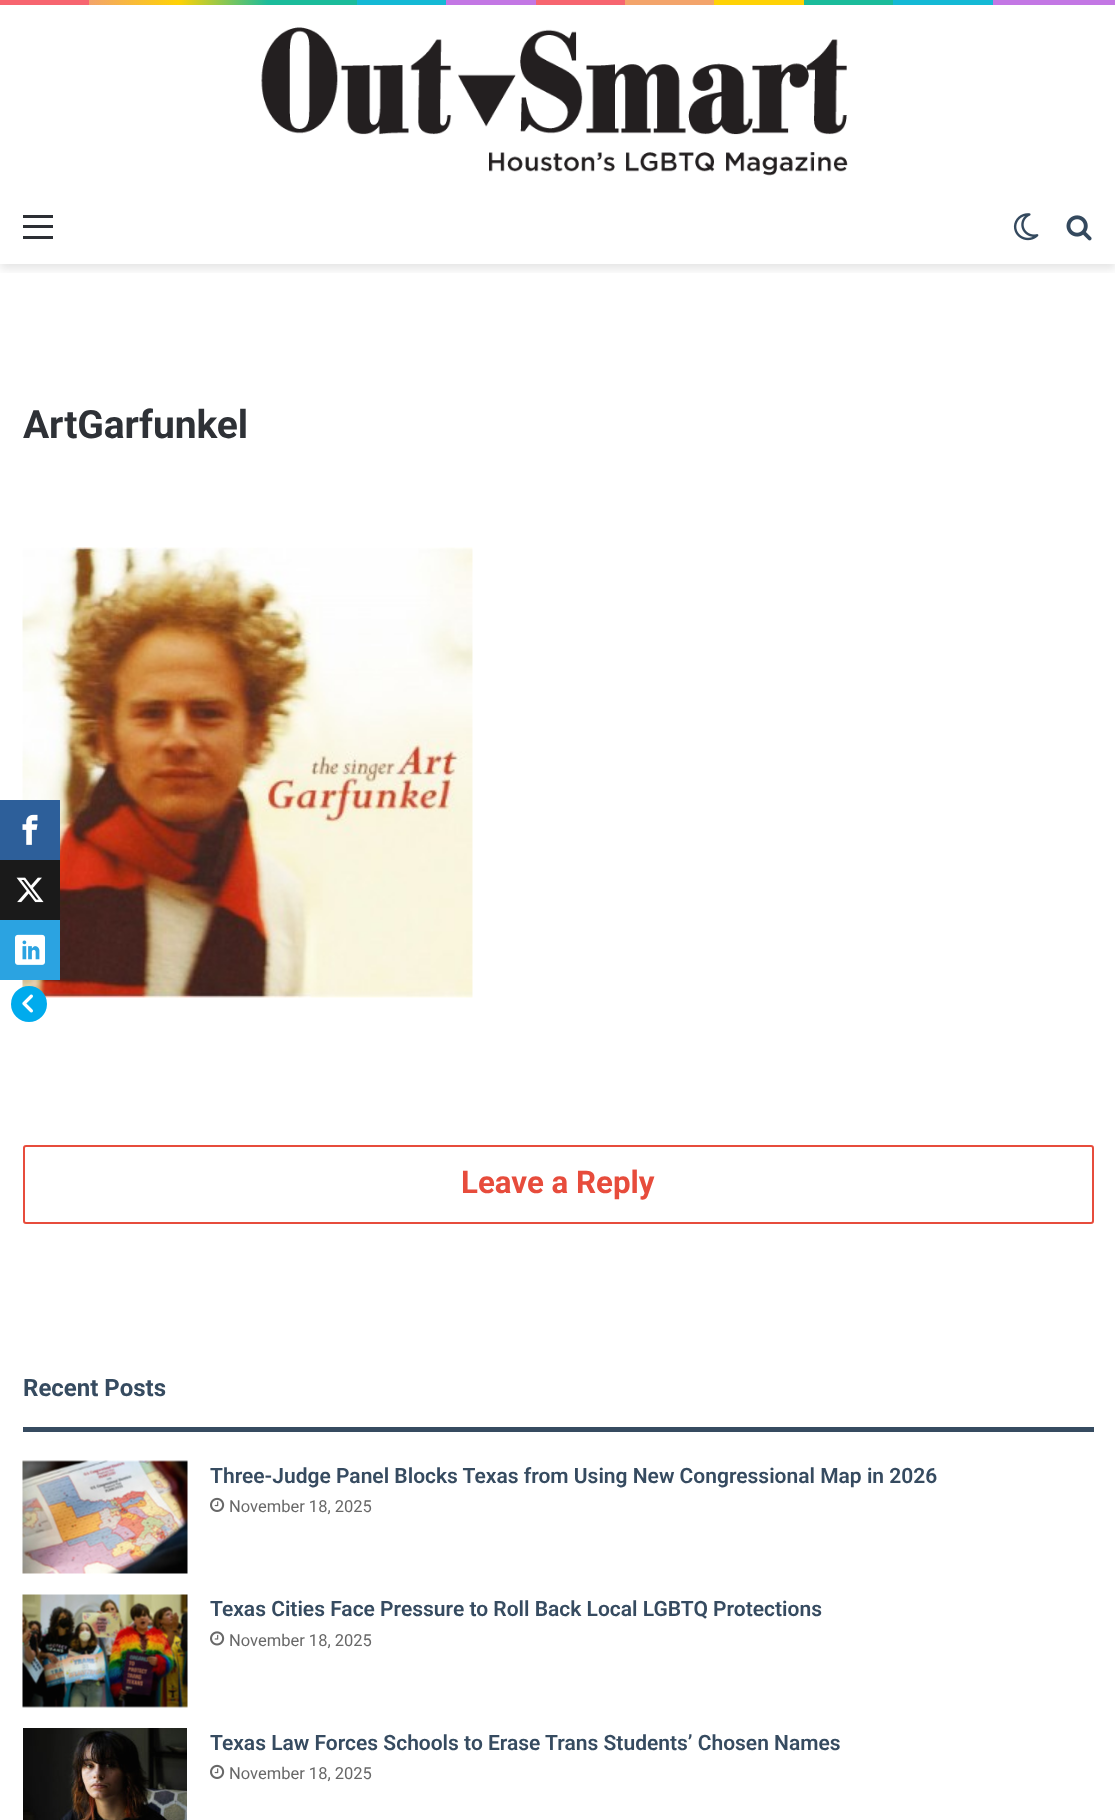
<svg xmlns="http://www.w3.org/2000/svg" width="1115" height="1820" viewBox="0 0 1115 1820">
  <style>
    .t1 { font: bold 39px Roboto; letter-spacing: -0.1px; fill: #2e3136; }
    .t2 { font: bold 31.25px Roboto; fill: #e74c3c; }
    .t3 { font: bold 24px Roboto; fill: #364b60; }
    .t4 { font: 600 21px Roboto; fill: #364b60; }
    .t5 { font: 16.5px Roboto; fill: #686868; }
  </style>
  <defs>
    <linearGradient id="g1" gradientUnits="userSpaceOnUse" x1="0" y1="2.3" x2="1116" y2="2.2"><stop offset="0" stop-color="#f76570"/><stop offset="0.08" stop-color="#f76570"/><stop offset="0.08" stop-color="#f3a46b"/><stop offset="0.16" stop-color="#ffd205"/><stop offset="0.24" stop-color="#1bbc9b"/><stop offset="0.32" stop-color="#1bbc9b"/><stop offset="0.32" stop-color="#14b9d5"/><stop offset="0.4" stop-color="#14b9d5"/><stop offset="0.4" stop-color="#c377e4"/><stop offset="0.48" stop-color="#c377e4"/><stop offset="0.48" stop-color="#f76570"/><stop offset="0.56" stop-color="#f76570"/><stop offset="0.56" stop-color="#f3a46b"/><stop offset="0.64" stop-color="#f3a46b"/><stop offset="0.64" stop-color="#ffd205"/><stop offset="0.72" stop-color="#ffd205"/><stop offset="0.72" stop-color="#1bbc9b"/><stop offset="0.8" stop-color="#1bbc9b"/><stop offset="0.8" stop-color="#14b9d5"/><stop offset="0.89" stop-color="#14b9d5"/><stop offset="0.89" stop-color="#c377e4"/><stop offset="1" stop-color="#c377e4"/></linearGradient>
    <clipPath id="clip1"><rect x="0" y="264" width="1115" height="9"/></clipPath>
  </defs>
  <rect width="100%" height="100%" fill="#fff"/>
  <rect x="0" y="0" width="1115" height="5" fill="url(#g1)"/>
  <g clip-path="url(#clip1)">
    <rect x="0" y="9" width="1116" height="260" fill="#0000001a" filter="blur(5px)"/>
  </g>
  <image x="261" y="27" width="587" height="149" href="images/1.png"/>
  <rect x="23" y="225" width="30" height="3" fill="#2c2f34"/>
  <rect x="23" y="215" width="30" height="3" fill="#2c2f34"/>
  <rect x="23" y="236" width="30" height="3" fill="#2c2f34"/>
  <image x="1013" y="213" width="26" height="28" href="images/2.png"/>
  <image x="1066" y="215" width="26" height="26" href="images/3.png"/>
  <text x="23" y="438" class="t1">ArtGarfunkel</text>
  <image x="22" y="547" width="451" height="451" href="images/4.png"/>
  <rect x="24" y="1146" width="1069" height="77" rx="2" fill="none" stroke="#e74c3c" stroke-width="2"/>
  <text x="461" y="1193" class="t2">Leave a Reply</text>
  <rect x="23" y="1427" width="1071" height="5" fill="#364b60"/>
  <text x="23" y="1396" class="t3">Recent Posts</text>
  <image x="22" y="1460" width="166" height="114" href="images/5.png"/>
  <text x="210" y="1483" class="t4">Three-Judge Panel Blocks Texas from Using New Congressional Map in 2026</text>
  <image x="210" y="1497" width="15" height="15" href="images/6.png"/>
  <text x="229" y="1512" class="t5">November 18, 2025</text>
  <image x="22" y="1594" width="166" height="114" href="images/7.png"/>
  <text x="210" y="1616" class="t4">Texas Cities Face Pressure to Roll Back Local LGBTQ Protections</text>
  <image x="210" y="1631" width="15" height="15" href="images/8.png"/>
  <text x="229" y="1646" class="t5">November 18, 2025</text>
  <image x="23" y="1728" width="164" height="92" href="images/9.png"/>
  <text x="210" y="1750" class="t4">Texas Law Forces Schools to Erase Trans Students’ Chosen Names</text>
  <image x="210" y="1764" width="15" height="15" href="images/6.png"/>
  <text x="229" y="1779" class="t5">November 18, 2025</text>
  <rect x="0" y="800" width="60" height="60" fill="#2d5f9a"/>
  <image x="22" y="814" width="16" height="31" href="images/10.png"/>
  <rect x="0" y="860" width="60" height="60" fill="#1a1a1a"/>
  <image x="16" y="877" width="28" height="26" href="images/11.png"/>
  <rect x="0" y="920" width="60" height="60" fill="#2ba3e1"/>
  <image x="15" y="934" width="30" height="31" href="images/12.png"/>
  <circle cx="29" cy="1004" r="18" fill="#00abed"/>
  <image x="22" y="994" width="11" height="19" href="images/13.png"/>
</svg>
